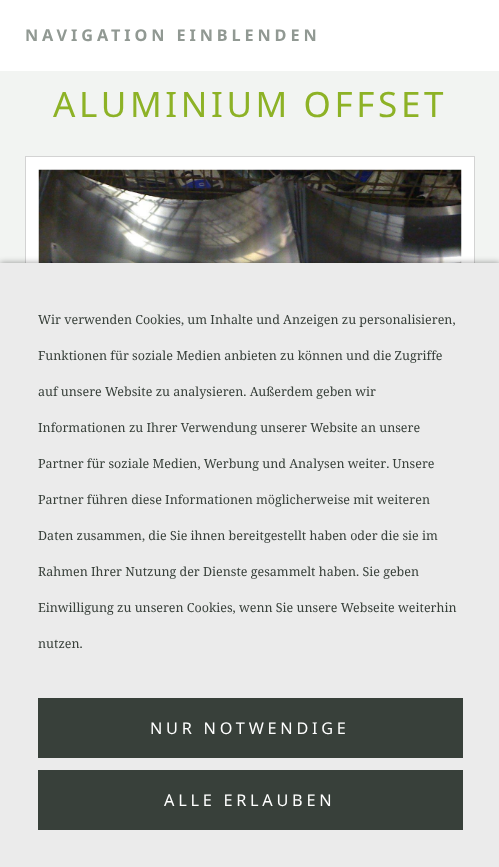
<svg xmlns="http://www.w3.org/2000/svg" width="499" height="867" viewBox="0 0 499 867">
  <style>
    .t1 { font: bold 16.25px Noto Sans; letter-spacing: 3.9px; fill: #919993; }
    .t2 { font: 35px Noto Sans; letter-spacing: 3.6px; fill: #8db226; }
    .t3 { font: 12.5px Noto Serif; fill: #38403a; }
    .t4 { font: 16.25px Noto Sans; letter-spacing: 3.75px; fill: #fff; }
  </style>
  <rect width="100%" height="100%" fill="#f2f4f2"/>
  <rect x="0" y="0" width="499" height="71" fill="#fff"/>
  <text x="25" y="41" class="t1">NAVIGATION EINBLENDEN</text>
  <text x="53" y="117" class="t2">ALUMINIUM OFFSET</text>
  <rect x="26" y="157" width="448" height="106" fill="#fff"/>
  <rect x="25.5" y="156.5" width="449" height="317" fill="none" stroke="#d3d3d3"/>
  <image x="38" y="169" width="424" height="94" href="images/1.png"/>
  <rect x="0" y="263" width="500" height="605" fill="#00000066" filter="blur(3px)"/>
  <rect x="0" y="263" width="499" height="604" fill="#ebebeb"/>
  <text x="38" y="324" class="t3">Wir verwenden Cookies, um Inhalte und Anzeigen zu personalisieren,</text>
  <text x="38" y="360" class="t3">Funktionen für soziale Medien anbieten zu können und die Zugriffe</text>
  <text x="38" y="396" class="t3">auf unsere Website zu analysieren. Außerdem geben wir</text>
  <text x="38" y="432" class="t3">Informationen zu Ihrer Verwendung unserer Website an unsere</text>
  <text x="38" y="468" class="t3">Partner für soziale Medien, Werbung und Analysen weiter. Unsere</text>
  <text x="38" y="504" class="t3">Partner führen diese Informationen möglicherweise mit weiteren</text>
  <text x="38" y="540" class="t3">Daten zusammen, die Sie ihnen bereitgestellt haben oder die sie im</text>
  <text x="38" y="576" class="t3">Rahmen Ihrer Nutzung der Dienste gesammelt haben. Sie geben</text>
  <text x="38" y="612" class="t3">Einwilligung zu unseren Cookies, wenn Sie unsere Webseite weiterhin</text>
  <text x="38" y="648" class="t3">nutzen.</text>
  <rect x="38" y="698" width="425" height="60" fill="#38403a"/>
  <text x="150" y="734" class="t4">NUR NOTWENDIGE</text>
  <rect x="38" y="770" width="425" height="60" fill="#38403a"/>
  <text x="164" y="806" class="t4">ALLE ERLAUBEN</text>
</svg>
